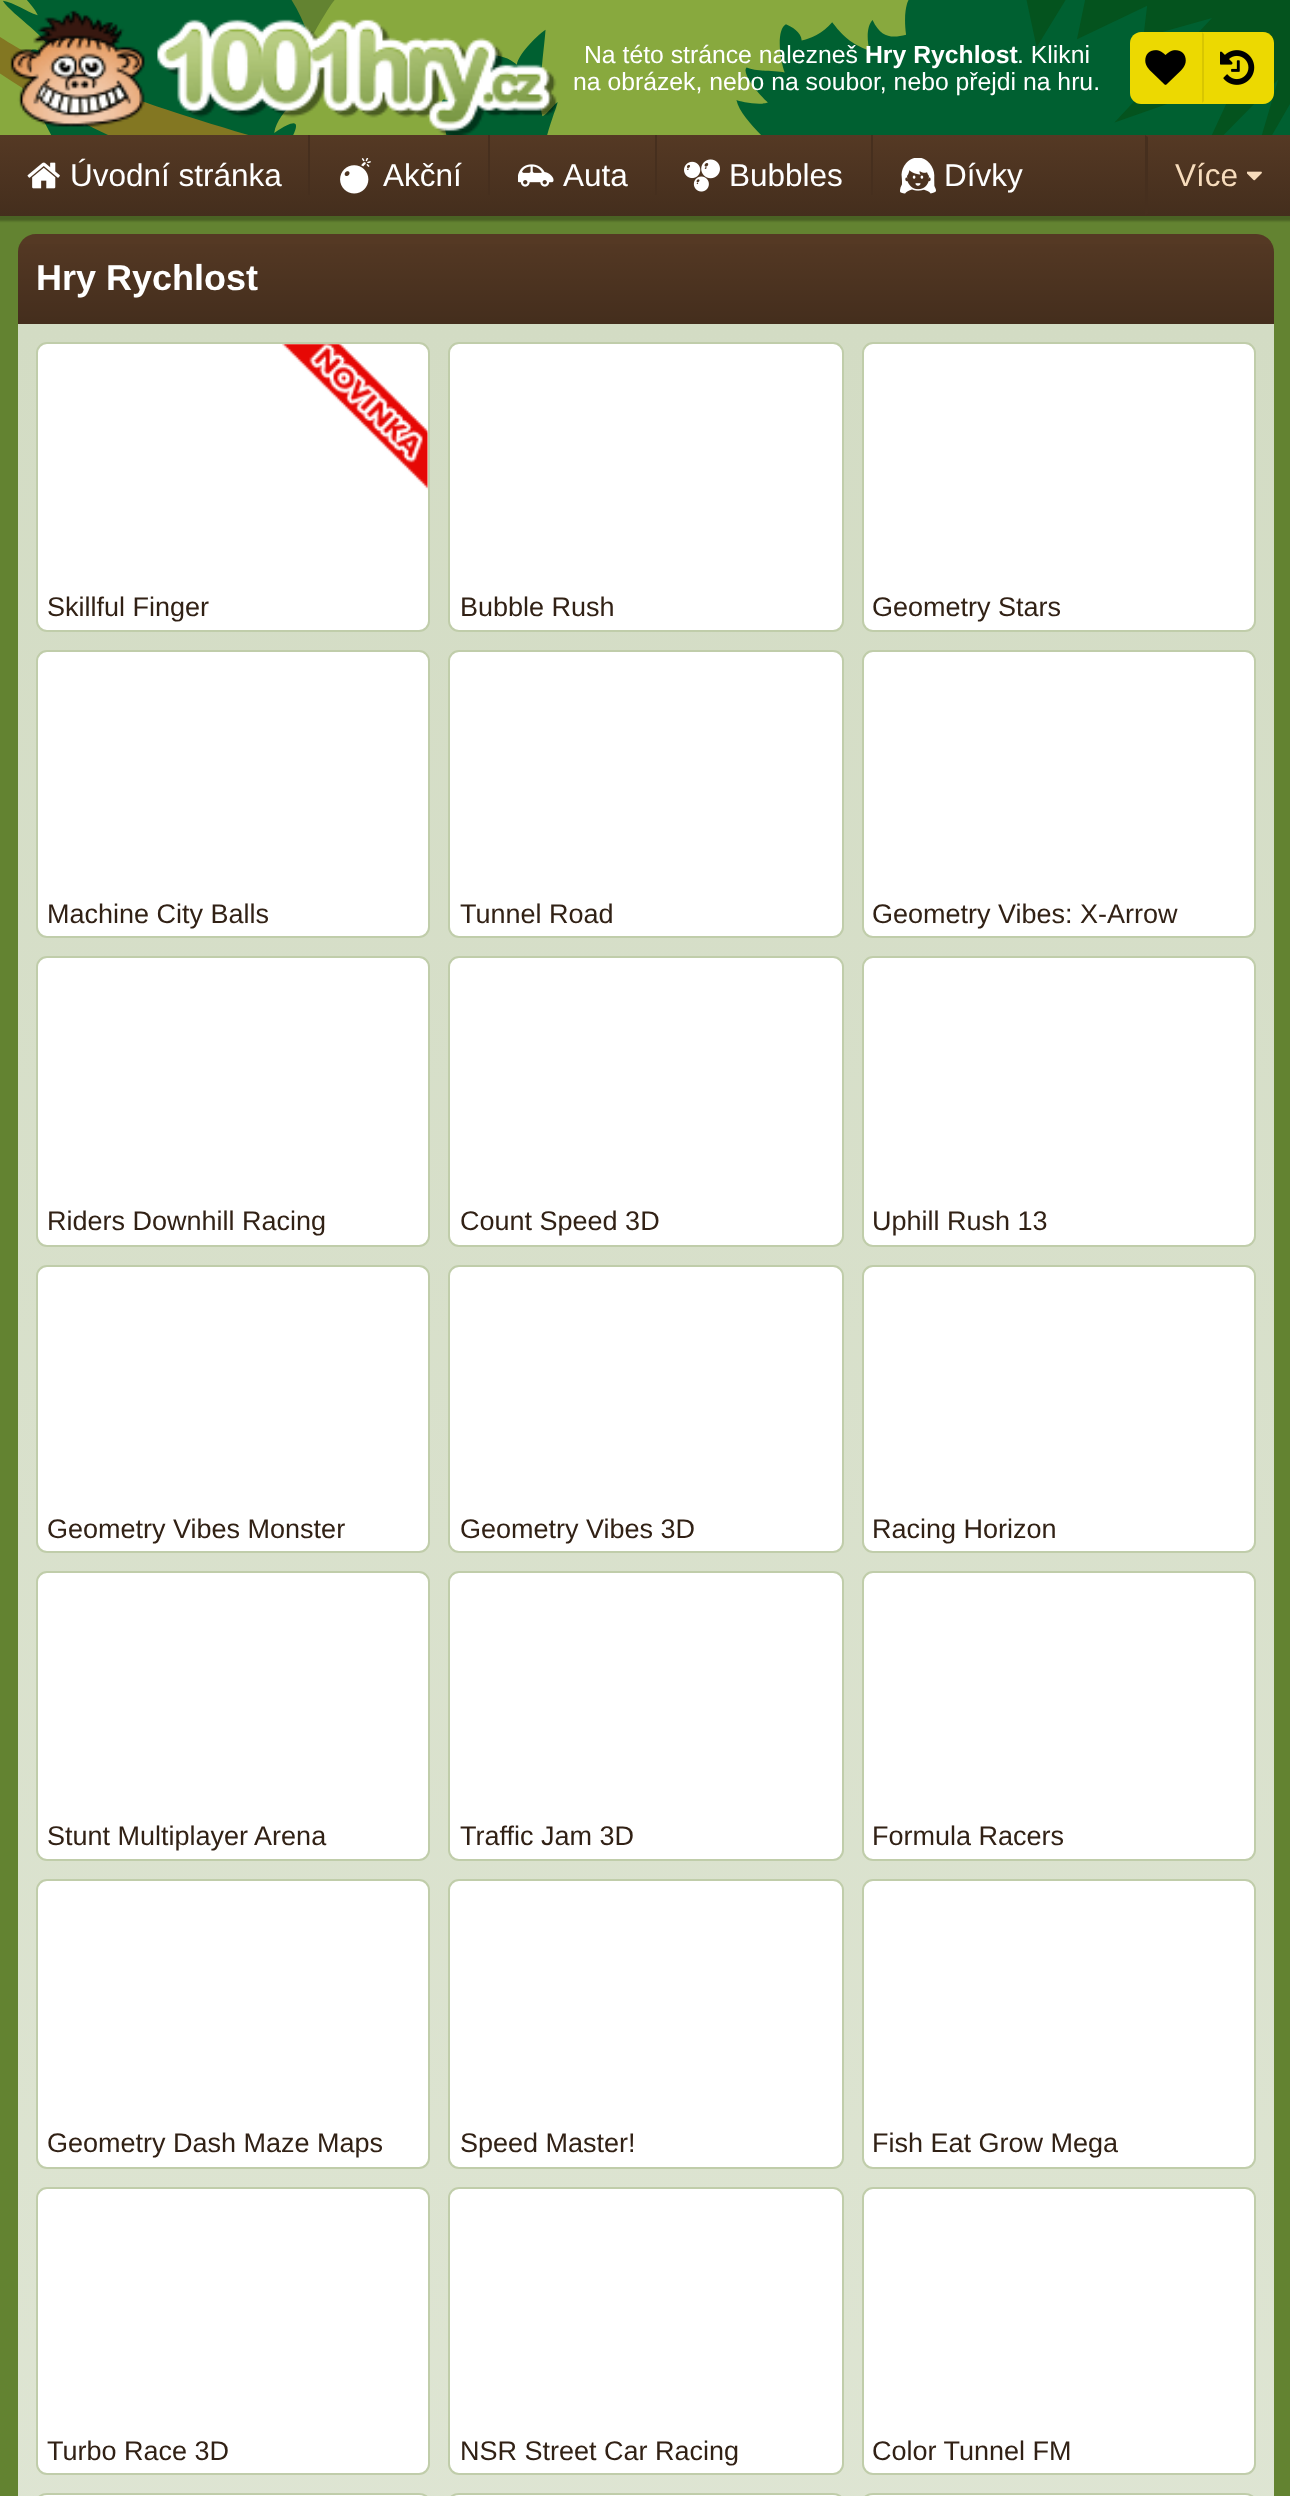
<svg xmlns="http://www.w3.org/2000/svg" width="1290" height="2496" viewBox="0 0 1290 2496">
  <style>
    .t1 { font: 24.75px Liberation Sans; fill: #fff; }
    .t2 { font: bold 24.75px Liberation Sans; fill: #fff; }
    .t3 { font: 31.5px Liberation Sans; fill: #fff; }
    .t4 { font: 31.5px Liberation Sans; fill: #f7dcbc; }
    .t5 { font: bold 36px Liberation Sans; fill: #fff; }
    .t6 { font: 27px Liberation Sans; fill: #312115; }
  </style>
  <defs>
    <linearGradient id="g1" gradientUnits="userSpaceOnUse" x1="646" y1="135" x2="646" y2="216"><stop offset="0" stop-color="#553924"/><stop offset="1" stop-color="#442e1d"/></linearGradient>
    <linearGradient id="g2" gradientUnits="userSpaceOnUse" x1="646" y1="234" x2="646" y2="324"><stop offset="0" stop-color="#000" stop-opacity="0"/><stop offset="1" stop-color="#000" stop-opacity="0.2"/></linearGradient>
    <linearGradient id="g3" gradientUnits="userSpaceOnUse" x1="646" y1="324" x2="646" y2="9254"><stop offset="0" stop-color="#d3dcc4"/><stop offset="1" stop-color="#fff"/></linearGradient>
  </defs>
  <rect width="100%" height="100%" fill="#638331"/>
  <rect x="-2" y="135" width="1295" height="86" fill="#00000040" filter="blur(1px)"/>
  <image x="0" y="0" width="1290" height="135" href="images/1.png"/>
  <image x="10" y="10" width="547" height="125" href="images/2.png"/>
  <text x="584" y="63" class="t1">Na této stránce nalezneš</text>
  <text x="865" y="63" class="t2">Hry Rychlost</text>
  <text x="1017" y="63" class="t1">. Klikni</text>
  <text x="573" y="90" class="t1">na obrázek, nebo na soubor, nebo přejdi na hru.</text>
  <path d="M1141 32H1202V104H1141C1135 104 1130 99 1130 93V43C1130 37 1135 32 1141 32Z" fill="#ecd901"/>
  <image x="1145" y="50" width="41" height="35" href="images/3.png"/>
  <path d="M1202 32H1263C1269 32 1274 37 1274 43V93C1274 99 1269 104 1263 104H1202Z" fill="#ecd901"/>
  <path d="M1204 34L1202 32V103L1204 101Z" fill="#d8c601"/>
  <image x="1220" y="50" width="35" height="35" href="images/4.png"/>
  <rect x="0" y="135" width="1290" height="81" fill="url(#g1)"/>
  <image x="27" y="162" width="33" height="27" href="images/5.png"/>
  <text x="70" y="186" class="t3">Úvodní stránka</text>
  <rect x="308" y="135" width="2" height="60" fill="#462f1e"/>
  <image x="340" y="158" width="31" height="36" href="images/6.png"/>
  <text x="383" y="186" class="t3">Akční</text>
  <rect x="488" y="135" width="2" height="60" fill="#462f1e"/>
  <image x="518" y="164" width="36" height="23" href="images/7.png"/>
  <text x="563" y="186" class="t3">Auta</text>
  <rect x="655" y="135" width="2" height="60" fill="#462f1e"/>
  <image x="684" y="159" width="36" height="33" href="images/8.png"/>
  <text x="729" y="186" class="t3">Bubbles</text>
  <rect x="871" y="135" width="2" height="60" fill="#462f1e"/>
  <image x="900" y="158" width="36" height="36" href="images/9.png"/>
  <text x="944" y="186" class="t3">Dívky</text>
  <path d="M1145 216V135L1148 137V214Z" fill="#462f1e"/>
  <text x="1175" y="186" class="t4">Více</text>
  <image x="1247" y="171" width="15" height="10" href="images/10.png"/>
  <path d="M36 234H1256C1266 234 1274 242 1274 252V324H18V252C18 242 26 234 36 234Z" fill="#553924"/>
  <rect x="18" y="244" width="1256" height="80" fill="url(#g2)"/>
  <text x="36" y="290" class="t5">Hry Rychlost</text>
  <rect x="18" y="324" width="1256" height="2172" fill="url(#g3)"/>
  <rect x="37" y="343" width="392" height="288" rx="10" fill="#fff" stroke="#c0cdaa" stroke-width="2"/>
  <image x="282" y="344" width="146" height="146" href="images/11.png"/>
  <text x="47" y="616" class="t6">Skillful Finger</text>
  <rect x="449" y="343" width="394" height="288" rx="10" fill="#fff" stroke="#c0cdaa" stroke-width="2"/>
  <text x="460" y="616" class="t6">Bubble Rush</text>
  <rect x="863" y="343" width="392" height="288" rx="10" fill="#fff" stroke="#c0cdaa" stroke-width="2"/>
  <text x="872" y="616" class="t6">Geometry Stars</text>
  <rect x="37" y="651" width="392" height="286" rx="10" fill="#fff" stroke="#c0cdaa" stroke-width="2"/>
  <text x="47" y="923" class="t6">Machine City Balls</text>
  <rect x="449" y="651" width="394" height="286" rx="10" fill="#fff" stroke="#c0cdaa" stroke-width="2"/>
  <text x="460" y="923" class="t6">Tunnel Road</text>
  <rect x="863" y="651" width="392" height="286" rx="10" fill="#fff" stroke="#c0cdaa" stroke-width="2"/>
  <text x="872" y="923" class="t6">Geometry Vibes: X-Arrow</text>
  <rect x="37" y="957" width="392" height="289" rx="10" fill="#fff" stroke="#c0cdaa" stroke-width="2"/>
  <text x="47" y="1230" class="t6">Riders Downhill Racing</text>
  <rect x="449" y="957" width="394" height="289" rx="10" fill="#fff" stroke="#c0cdaa" stroke-width="2"/>
  <text x="460" y="1230" class="t6">Count Speed 3D</text>
  <rect x="863" y="957" width="392" height="289" rx="10" fill="#fff" stroke="#c0cdaa" stroke-width="2"/>
  <text x="872" y="1230" class="t6">Uphill Rush 13</text>
  <rect x="37" y="1266" width="392" height="286" rx="10" fill="#fff" stroke="#c0cdaa" stroke-width="2"/>
  <text x="47" y="1538" class="t6">Geometry Vibes Monster</text>
  <rect x="449" y="1266" width="394" height="286" rx="10" fill="#fff" stroke="#c0cdaa" stroke-width="2"/>
  <text x="460" y="1538" class="t6">Geometry Vibes 3D</text>
  <rect x="863" y="1266" width="392" height="286" rx="10" fill="#fff" stroke="#c0cdaa" stroke-width="2"/>
  <text x="872" y="1538" class="t6">Racing Horizon</text>
  <rect x="37" y="1572" width="392" height="288" rx="10" fill="#fff" stroke="#c0cdaa" stroke-width="2"/>
  <text x="47" y="1845" class="t6">Stunt Multiplayer Arena</text>
  <rect x="449" y="1572" width="394" height="288" rx="10" fill="#fff" stroke="#c0cdaa" stroke-width="2"/>
  <text x="460" y="1845" class="t6">Traffic Jam 3D</text>
  <rect x="863" y="1572" width="392" height="288" rx="10" fill="#fff" stroke="#c0cdaa" stroke-width="2"/>
  <text x="872" y="1845" class="t6">Formula Racers</text>
  <rect x="37" y="1880" width="392" height="288" rx="10" fill="#fff" stroke="#c0cdaa" stroke-width="2"/>
  <text x="47" y="2152" class="t6">Geometry Dash Maze Maps</text>
  <rect x="449" y="1880" width="394" height="288" rx="10" fill="#fff" stroke="#c0cdaa" stroke-width="2"/>
  <text x="460" y="2152" class="t6">Speed Master!</text>
  <rect x="863" y="1880" width="392" height="288" rx="10" fill="#fff" stroke="#c0cdaa" stroke-width="2"/>
  <text x="872" y="2152" class="t6">Fish Eat Grow Mega</text>
  <rect x="37" y="2188" width="392" height="286" rx="10" fill="#fff" stroke="#c0cdaa" stroke-width="2"/>
  <text x="47" y="2460" class="t6">Turbo Race 3D</text>
  <rect x="449" y="2188" width="394" height="286" rx="10" fill="#fff" stroke="#c0cdaa" stroke-width="2"/>
  <text x="460" y="2460" class="t6">NSR Street Car Racing</text>
  <rect x="863" y="2188" width="392" height="286" rx="10" fill="#fff" stroke="#c0cdaa" stroke-width="2"/>
  <text x="872" y="2460" class="t6">Color Tunnel FM</text>
  <rect x="37" y="2494" width="392" height="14" rx="10" fill="#fff" stroke="#c0cdaa" stroke-width="2"/>
  <rect x="449" y="2494" width="394" height="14" rx="10" fill="#fff" stroke="#c0cdaa" stroke-width="2"/>
  <rect x="863" y="2494" width="392" height="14" rx="10" fill="#fff" stroke="#c0cdaa" stroke-width="2"/>
</svg>
